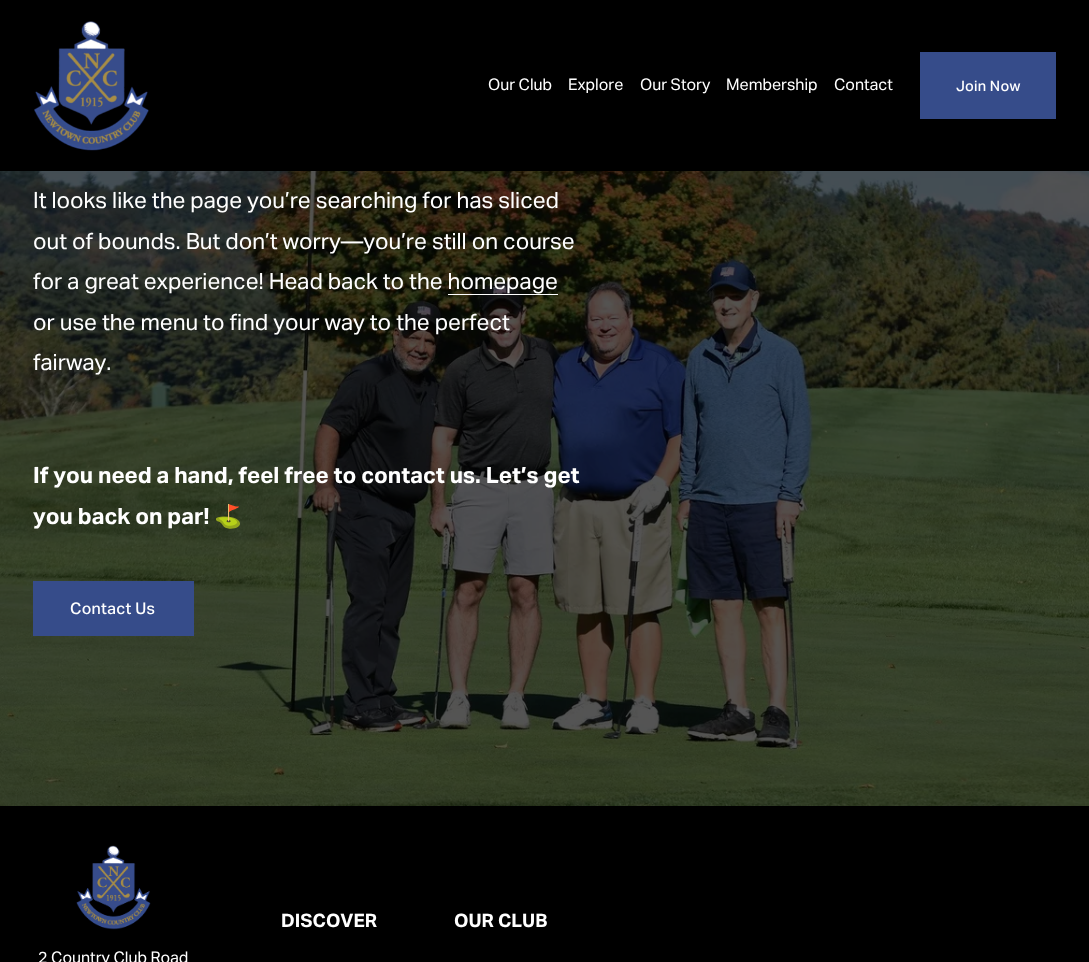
<svg xmlns="http://www.w3.org/2000/svg" width="1089" height="962" viewBox="0 0 1089 962">
  <style>*{font-kerning:none!important;font-variant-ligatures:none!important}</style>
  <style>
    .t1 { font: 16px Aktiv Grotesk; fill: #fff; }
    .t2 { font: 500 14.5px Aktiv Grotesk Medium; letter-spacing: 0.25px; fill: #fff; }
    .t3 { font: 22.5px Aktiv Grotesk; fill: #fff; }
    .t4 { font: bold 22.5px Aktiv Grotesk; fill: #fff; }
    .t5 { font: bold 22.5px Noto Color Emoji; fill: #fff; }
    .t6 { font: 500 16px Aktiv Grotesk Medium; letter-spacing: 0.25px; fill: #fff; }
    .t7 { font: bold 18.5px Aktiv Grotesk; fill: #fff; }
  </style>
  <rect width="100%" height="100%" fill="#000"/>
  <image x="34" y="21" width="115" height="130" href="images/1.png"/>
  <text x="488" y="90" class="t1">Our Club</text>
  <text x="568" y="90" class="t1">Explore</text>
  <text x="640" y="90" class="t1">Our Story</text>
  <text x="726" y="90" class="t1">Membership</text>
  <text x="834" y="90" class="t1">Contact</text>
  <rect x="920" y="52" width="136" height="67" fill="#364c8a"/>
  <text x="956" y="91" class="t2">Join Now</text>
  <image x="0" y="171" width="1089" height="635" href="images/2.png"/>
  <text x="33" y="208" class="t3">It looks like the page you’re searching for has sliced</text>
  <text x="33" y="249" class="t3">out of bounds. But don’t worry—you’re still on course</text>
  <text x="33" y="289" class="t3">for a great experience! Head back to the homepage</text>
  <rect x="448" y="294" width="110" height="1" fill="#fff"/>
  <text x="33" y="330" class="t3">or use the menu to find your way to the perfect</text>
  <text x="33" y="370" class="t3">fairway.</text>
  <text x="33" y="483" class="t4">If you need a hand, feel free to contact us. Let’s get</text>
  <text x="33" y="524" class="t4">you back on par!</text>
  <text x="214" y="524" class="t5">⛳</text>
  <rect x="33" y="581" width="161" height="55" fill="#364c8a"/>
  <text x="70" y="614" class="t6">Contact Us</text>
  <image x="76" y="845" width="75" height="85" href="images/3.png"/>
  <text x="281" y="927" class="t7">DISCOVER</text>
  <text x="454" y="927" class="t7">OUR CLUB</text>
  <text x="38" y="963" class="t1">2 Country Club Road</text>
</svg>
